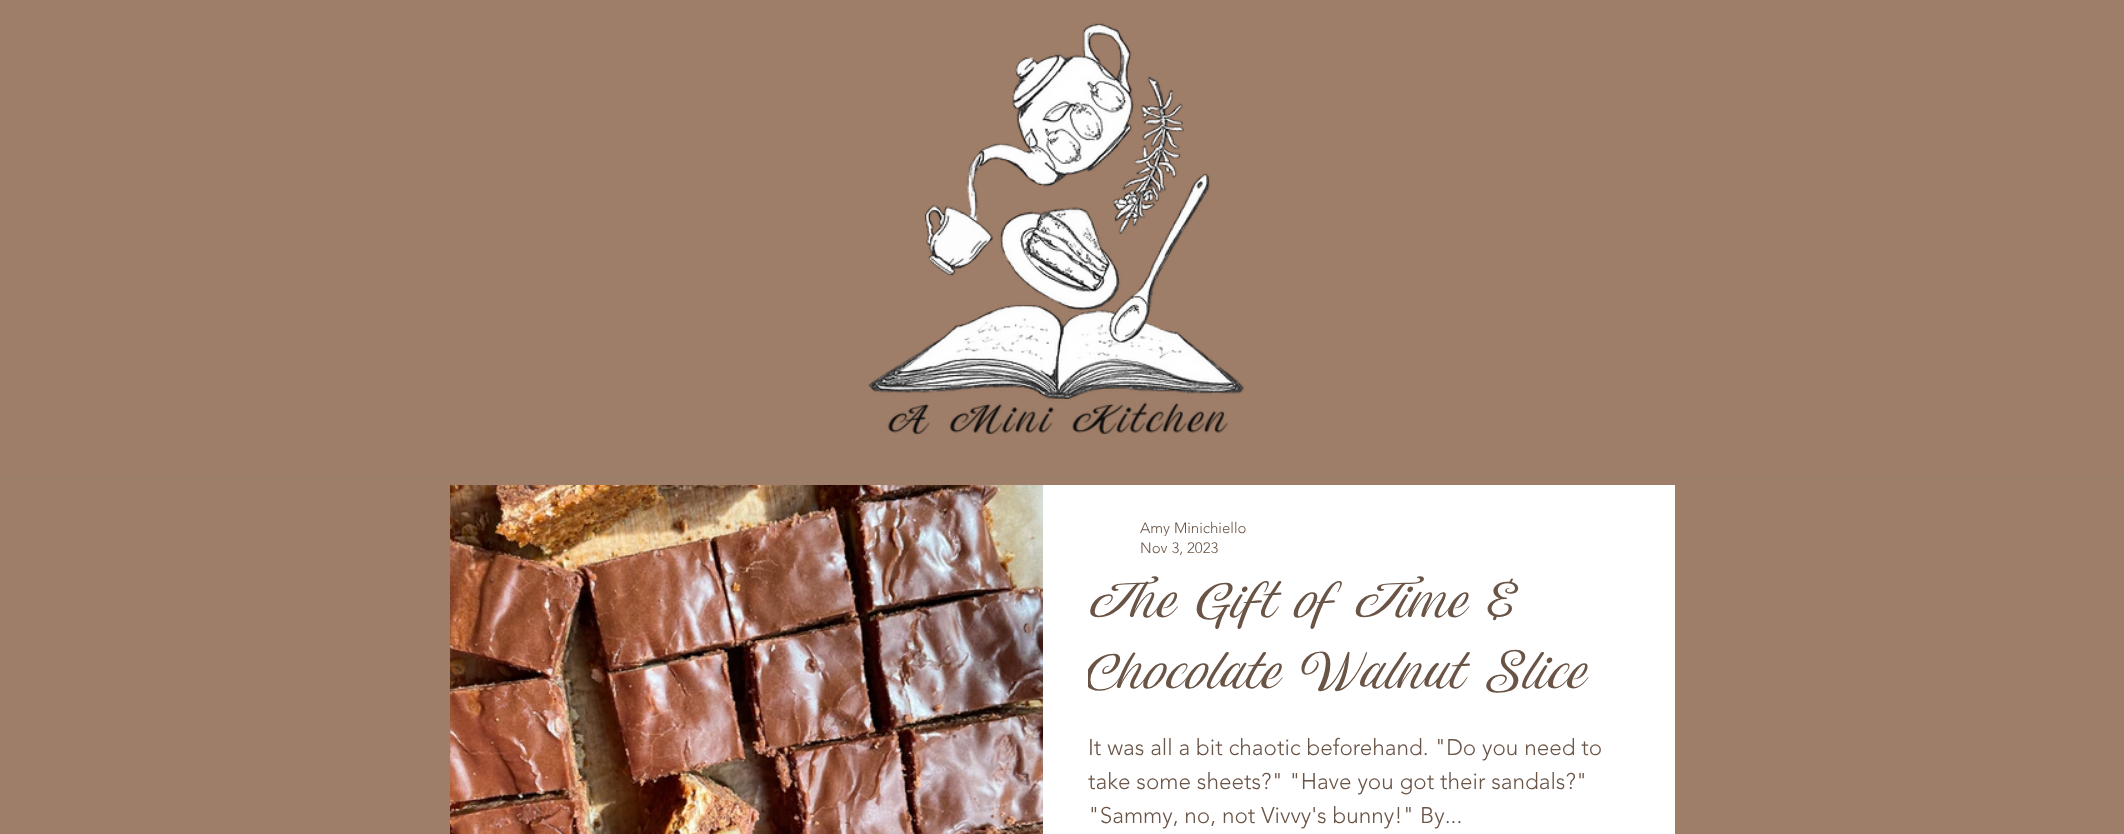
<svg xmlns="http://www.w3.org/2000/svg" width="2124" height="834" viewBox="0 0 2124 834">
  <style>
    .t1 { font: 300 15px 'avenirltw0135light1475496'; fill: #6a5446; }
    .t2 { font: 43.75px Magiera; fill: #6a5446; }
    .t3 { font: 300 22.5px 'avenirltw0135light1475496'; fill: #6a5446; }
  </style>
  <defs>
    <clipPath id="clip1"><rect x="1140" y="519" width="106" height="17"/></clipPath>
    <clipPath id="clip2"><rect x="1088" y="574" width="542" height="142"/></clipPath>
  </defs>
  <rect width="100%" height="100%" fill="#9f7e69"/>
  <image x="868" y="23" width="376" height="412" href="images/1.png"/>
  <rect x="0" y="478" width="2124" height="1" fill="#98846e"/>
  <rect x="1043" y="485" width="632" height="349" fill="#fff"/>
  <image x="450" y="485" width="593" height="349" href="images/2.png"/>
  <g clip-path="url(#clip1)">
    <text x="1140" y="533" class="t1">Amy Minichiello</text>
  </g>
  <text x="1140" y="553" class="t1">Nov 3, 2023</text>
  <text x="1088" y="614" class="t2">The Gift of Time &amp;</text>
  <g clip-path="url(#clip2)">
    <text x="1088" y="685" class="t2">Chocolate Walnut Slice</text>
  </g>
  <text x="1088" y="755" class="t3">It was all a bit chaotic beforehand. "Do you need to</text>
  <text x="1088" y="789" class="t3">take some sheets?" "Have you got their sandals?"</text>
  <text x="1088" y="823" class="t3">"Sammy, no, not Vivvy's bunny!" By...</text>
</svg>
